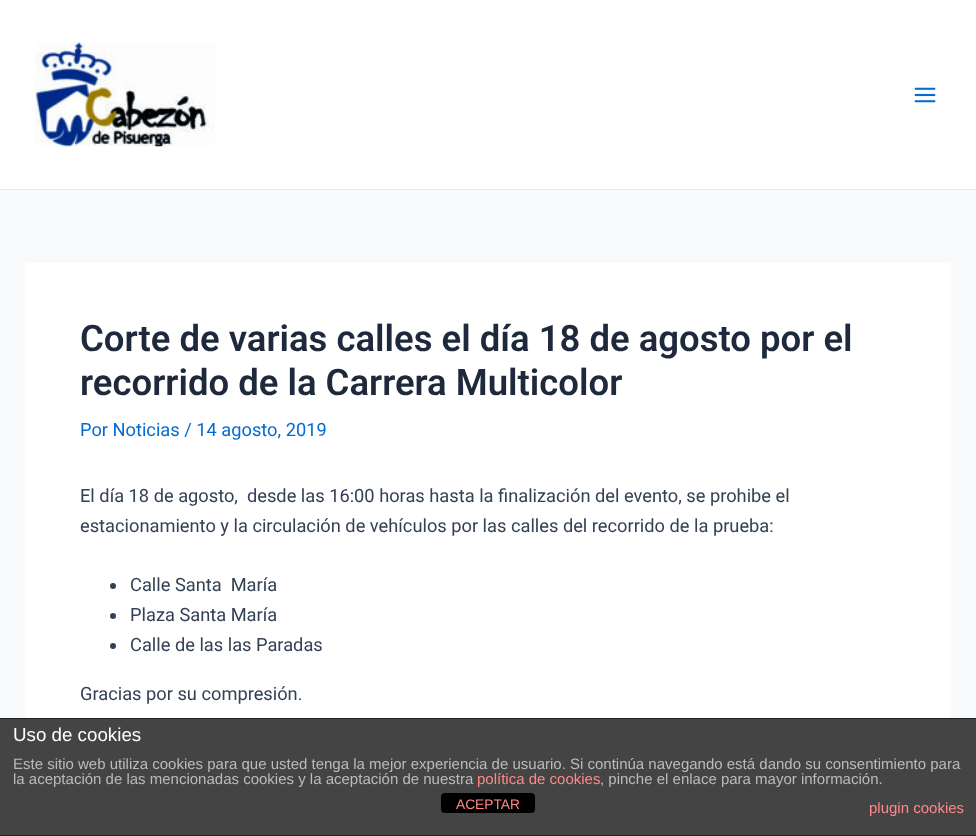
<svg xmlns="http://www.w3.org/2000/svg" width="976" height="836" viewBox="0 0 976 836">
  <style>
    .t1 { font: 600 36.5px Roboto; fill: #1e293b; }
    .t2 { font: 18.25px Roboto; fill: #046bd2; }
    .t3 { font: 18.25px Roboto; fill: #334155; }
    .t4 { font: 18.75px Liberation Sans; fill: #fff; }
    .t5 { font: 15px Liberation Sans; fill: #bbb; }
    .t6 { font: 15px Liberation Sans; fill: #f88; }
    .t7 { font: 13.75px Liberation Sans; fill: #f88; }
  </style>
  <rect width="100%" height="100%" fill="#f9fafb"/>
  <rect x="0" y="0" width="976" height="189" fill="#fff"/>
  <rect x="0" y="189" width="976" height="1" fill="#e2e8f0"/>
  <image x="35" y="42" width="180" height="105" href="images/1.png"/>
  <image x="914" y="87" width="22" height="16" href="images/2.png"/>
  <rect x="25" y="263" width="926" height="455" fill="#fff"/>
  <text x="80" y="351" class="t1">Corte de varias calles el día 18 de agosto por el</text>
  <text x="80" y="395" class="t1">recorrido de la Carrera Multicolor</text>
  <text x="80" y="436" class="t2">Por Noticias / 14 agosto, 2019</text>
  <text x="80" y="502" class="t3" xml:space="preserve">El día 18 de agosto,  desde las 16:00 horas hasta la finalización del evento, se prohibe el</text>
  <text x="80" y="532" class="t3">estacionamiento y la circulación de vehículos por las calles del recorrido de la prueba:</text>
  <circle cx="113" cy="586" r="3" fill="#334155"/>
  <text x="130" y="591" class="t3" xml:space="preserve">Calle Santa  María</text>
  <circle cx="113" cy="616" r="3" fill="#334155"/>
  <text x="130" y="621" class="t3">Plaza Santa María</text>
  <circle cx="113" cy="646" r="3" fill="#334155"/>
  <text x="130" y="651" class="t3">Calle de las las Paradas</text>
  <text x="80" y="700" class="t3">Gracias por su compresión.</text>
  <rect x="0" y="719" width="976" height="116" fill="#444"/>
  <rect x="0" y="718" width="976" height="1" fill="#222"/>
  <rect x="0" y="835" width="976" height="1" fill="#222"/>
  <text x="13" y="741" class="t4">Uso de cookies</text>
  <text x="13" y="769" class="t5">Este sitio web utiliza cookies para que usted tenga la mejor experiencia de usuario. Si continúa navegando está dando su consentimiento para</text>
  <text x="13" y="784" class="t5">la aceptación de las mencionadas cookies y la aceptación de nuestra</text>
  <text x="477" y="784" class="t6">política de cookies</text>
  <text x="600" y="784" class="t5">, pinche el enlace para mayor información.</text>
  <text x="869" y="813" class="t6">plugin cookies</text>
  <rect x="441" y="793" width="94" height="20" rx="4" fill="#000"/>
  <text x="456" y="809" class="t7">ACEPTAR</text>
</svg>
